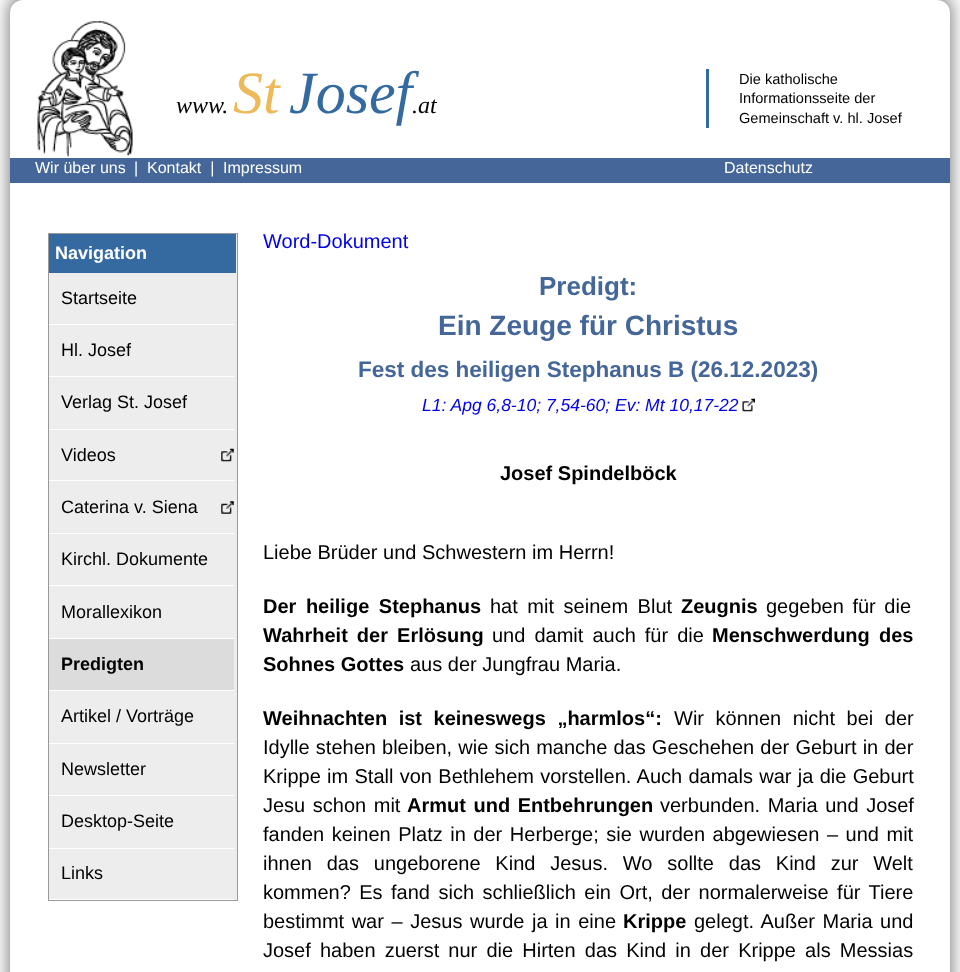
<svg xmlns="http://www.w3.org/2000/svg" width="960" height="972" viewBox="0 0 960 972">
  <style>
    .t1 { font: italic 24px Liberation Serif; fill: #000; }
    .t2 { font: italic 60px Liberation Serif; fill: #edb959; }
    .t3 { font: italic 60px Liberation Serif; fill: #356aa0; }
    .t4 { font: 14.6px Liberation Sans; fill: #000; }
    .t5 { font: 16px Liberation Sans; fill: #fff; }
    .t6 { font: bold 18px Liberation Sans; fill: #fff; }
    .t7 { font: 18px Liberation Sans; fill: #000; }
    .t8 { font: bold 18px Liberation Sans; fill: #000; }
    .t9 { font: 20px Liberation Sans; fill: #00e; }
    .t10 { font: bold 26px Liberation Sans; fill: #469; }
    .t11 { font: bold 28px Liberation Sans; fill: #469; }
    .t12 { font: bold 22.5px Liberation Sans; fill: #469; }
    .t13 { font: italic 17.5px Liberation Sans; fill: #00e; }
    .t14 { font: bold 20px Liberation Sans; fill: #000; }
    .t15 { font: 20px Liberation Sans; fill: #000; }
  </style>
  <rect width="100%" height="100%" fill="#fff"/>
  <rect x="10" y="-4" width="940" height="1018" rx="13" fill="#666" filter="blur(9.5px)"/>
  <rect x="10" y="0" width="940" height="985" rx="13" fill="#fff"/>
  <image x="37" y="21" width="96" height="136" href="images/1.png"/>
  <text x="176" y="113" class="t1">www.</text>
  <text x="233" y="113" class="t2">St</text>
  <text x="289" y="113" class="t3">Josef</text>
  <text x="412" y="113" class="t1">.at</text>
  <rect x="706" y="69" width="3" height="59" fill="#356aa0"/>
  <text x="739" y="84" class="t4">Die katholische</text>
  <text x="739" y="103" class="t4">Informationsseite der</text>
  <text x="739" y="123" class="t4">Gemeinschaft v. hl. Josef</text>
  <rect x="10" y="158" width="940" height="25" fill="#469"/>
  <text x="35" y="173" class="t5">Wir über uns</text>
  <text x="134" y="173" class="t5">|</text>
  <text x="147" y="173" class="t5" xml:space="preserve">Kontakt  |</text>
  <text x="223" y="173" class="t5">Impressum</text>
  <text x="724" y="173" class="t5">Datenschutz</text>
  <rect x="48.5" y="233.5" width="189" height="667" fill="#ededed" stroke="#999"/>
  <rect x="49" y="234" width="187" height="39" fill="#356aa0"/>
  <text x="55" y="259" class="t6">Navigation</text>
  <rect x="49" y="324" width="185" height="1" fill="#fff"/>
  <text x="61" y="304" class="t7">Startseite</text>
  <rect x="49" y="376" width="185" height="1" fill="#fff"/>
  <text x="61" y="356" class="t7">Hl. Josef</text>
  <rect x="49" y="429" width="185" height="1" fill="#fff"/>
  <text x="61" y="408" class="t7">Verlag St. Josef</text>
  <image x="221" y="448" width="13" height="14" href="images/2.png"/>
  <rect x="49" y="480" width="185" height="1" fill="#fff"/>
  <text x="61" y="461" class="t7">Videos</text>
  <image x="221" y="501" width="13" height="13" href="images/3.png"/>
  <rect x="49" y="533" width="185" height="1" fill="#fff"/>
  <text x="61" y="513" class="t7">Caterina v. Siena</text>
  <rect x="49" y="585" width="185" height="1" fill="#fff"/>
  <text x="61" y="565" class="t7">Kirchl. Dokumente</text>
  <rect x="49" y="638" width="185" height="1" fill="#fff"/>
  <text x="61" y="618" class="t7">Morallexikon</text>
  <rect x="49" y="639" width="185" height="51" fill="#dcdcdc"/>
  <rect x="49" y="690" width="185" height="1" fill="#fff"/>
  <text x="61" y="670" class="t8">Predigten</text>
  <rect x="49" y="743" width="185" height="1" fill="#fff"/>
  <text x="61" y="722" class="t7">Artikel / Vorträge</text>
  <rect x="49" y="795" width="185" height="1" fill="#fff"/>
  <text x="61" y="775" class="t7">Newsletter</text>
  <rect x="49" y="848" width="185" height="1" fill="#fff"/>
  <text x="61" y="827" class="t7">Desktop-Seite</text>
  <rect x="49" y="899" width="185" height="1" fill="#fff"/>
  <text x="61" y="879" class="t7">Links</text>
  <text x="263" y="248" class="t9">Word-Dokument</text>
  <text x="539" y="295" class="t10">Predigt:</text>
  <text x="438" y="335" class="t11">Ein Zeuge für Christus</text>
  <text x="358" y="377" class="t12">Fest des heiligen Stephanus B (26.12.2023)</text>
  <text x="422" y="411" class="t13">L1: Apg 6,8-10; 7,54-60; Ev: Mt 10,17-22</text>
  <image x="742" y="398" width="13" height="14" href="images/4.png"/>
  <text x="500" y="480" class="t14">Josef Spindelböck</text>
  <text x="263" y="559" class="t15">Liebe Brüder und Schwestern im Herrn!</text>
  <text x="263" y="613" word-spacing="4" class="t14">Der heilige Stephanus</text>
  <text x="490" y="613" word-spacing="4" class="t15">hat mit seinem Blut</text>
  <text x="681" y="613" class="t14">Zeugnis</text>
  <text x="766" y="613" word-spacing="3" class="t15">gegeben für die</text>
  <text x="263" y="642" word-spacing="3.5" class="t14">Wahrheit der Erlösung</text>
  <text x="492" y="642" word-spacing="3.5" class="t15">und damit auch für die</text>
  <text x="712" y="642" class="t14">Menschwerdung</text>
  <text x="879" y="642" class="t14">des</text>
  <text x="263" y="671" class="t14">Sohnes Gottes</text>
  <text x="410" y="671" class="t15">aus der Jungfrau Maria.</text>
  <text x="263" y="725" word-spacing="6" class="t14">Weihnachten ist keineswegs „harmlos“:</text>
  <text x="674" y="725" word-spacing="6" class="t15">Wir können nicht bei der</text>
  <text x="263" y="754" word-spacing="0.6" class="t15">Idylle stehen bleiben, wie sich manche das Geschehen der Geburt in der</text>
  <text x="263" y="783" word-spacing="0.75" class="t15">Krippe im Stall von Bethlehem vorstellen. Auch damals war ja die Geburt</text>
  <text x="263" y="812" word-spacing="2" class="t15">Jesu schon mit</text>
  <text x="407" y="812" word-spacing="2" class="t14">Armut und Entbehrungen</text>
  <text x="660" y="812" word-spacing="2" class="t15">verbunden. Maria und Josef</text>
  <text x="263" y="841" word-spacing="2" class="t15">fanden keinen Platz in der Herberge; sie wurden abgewiesen – und mit</text>
  <text x="263" y="870" word-spacing="9.25" class="t15">ihnen das ungeborene Kind Jesus. Wo sollte das Kind zur Welt</text>
  <text x="263" y="899" word-spacing="2.9" class="t15">kommen? Es fand sich schließlich ein Ort, der normalerweise für Tiere</text>
  <text x="263" y="928" word-spacing="2" class="t15">bestimmt war – Jesus wurde ja in eine</text>
  <text x="623" y="928" class="t14">Krippe</text>
  <text x="694" y="928" word-spacing="2" class="t15">gelegt. Außer Maria und</text>
  <text x="263" y="957" word-spacing="3.6" class="t15">Josef haben zuerst nur die Hirten das Kind in der Krippe als Messias</text>
</svg>
